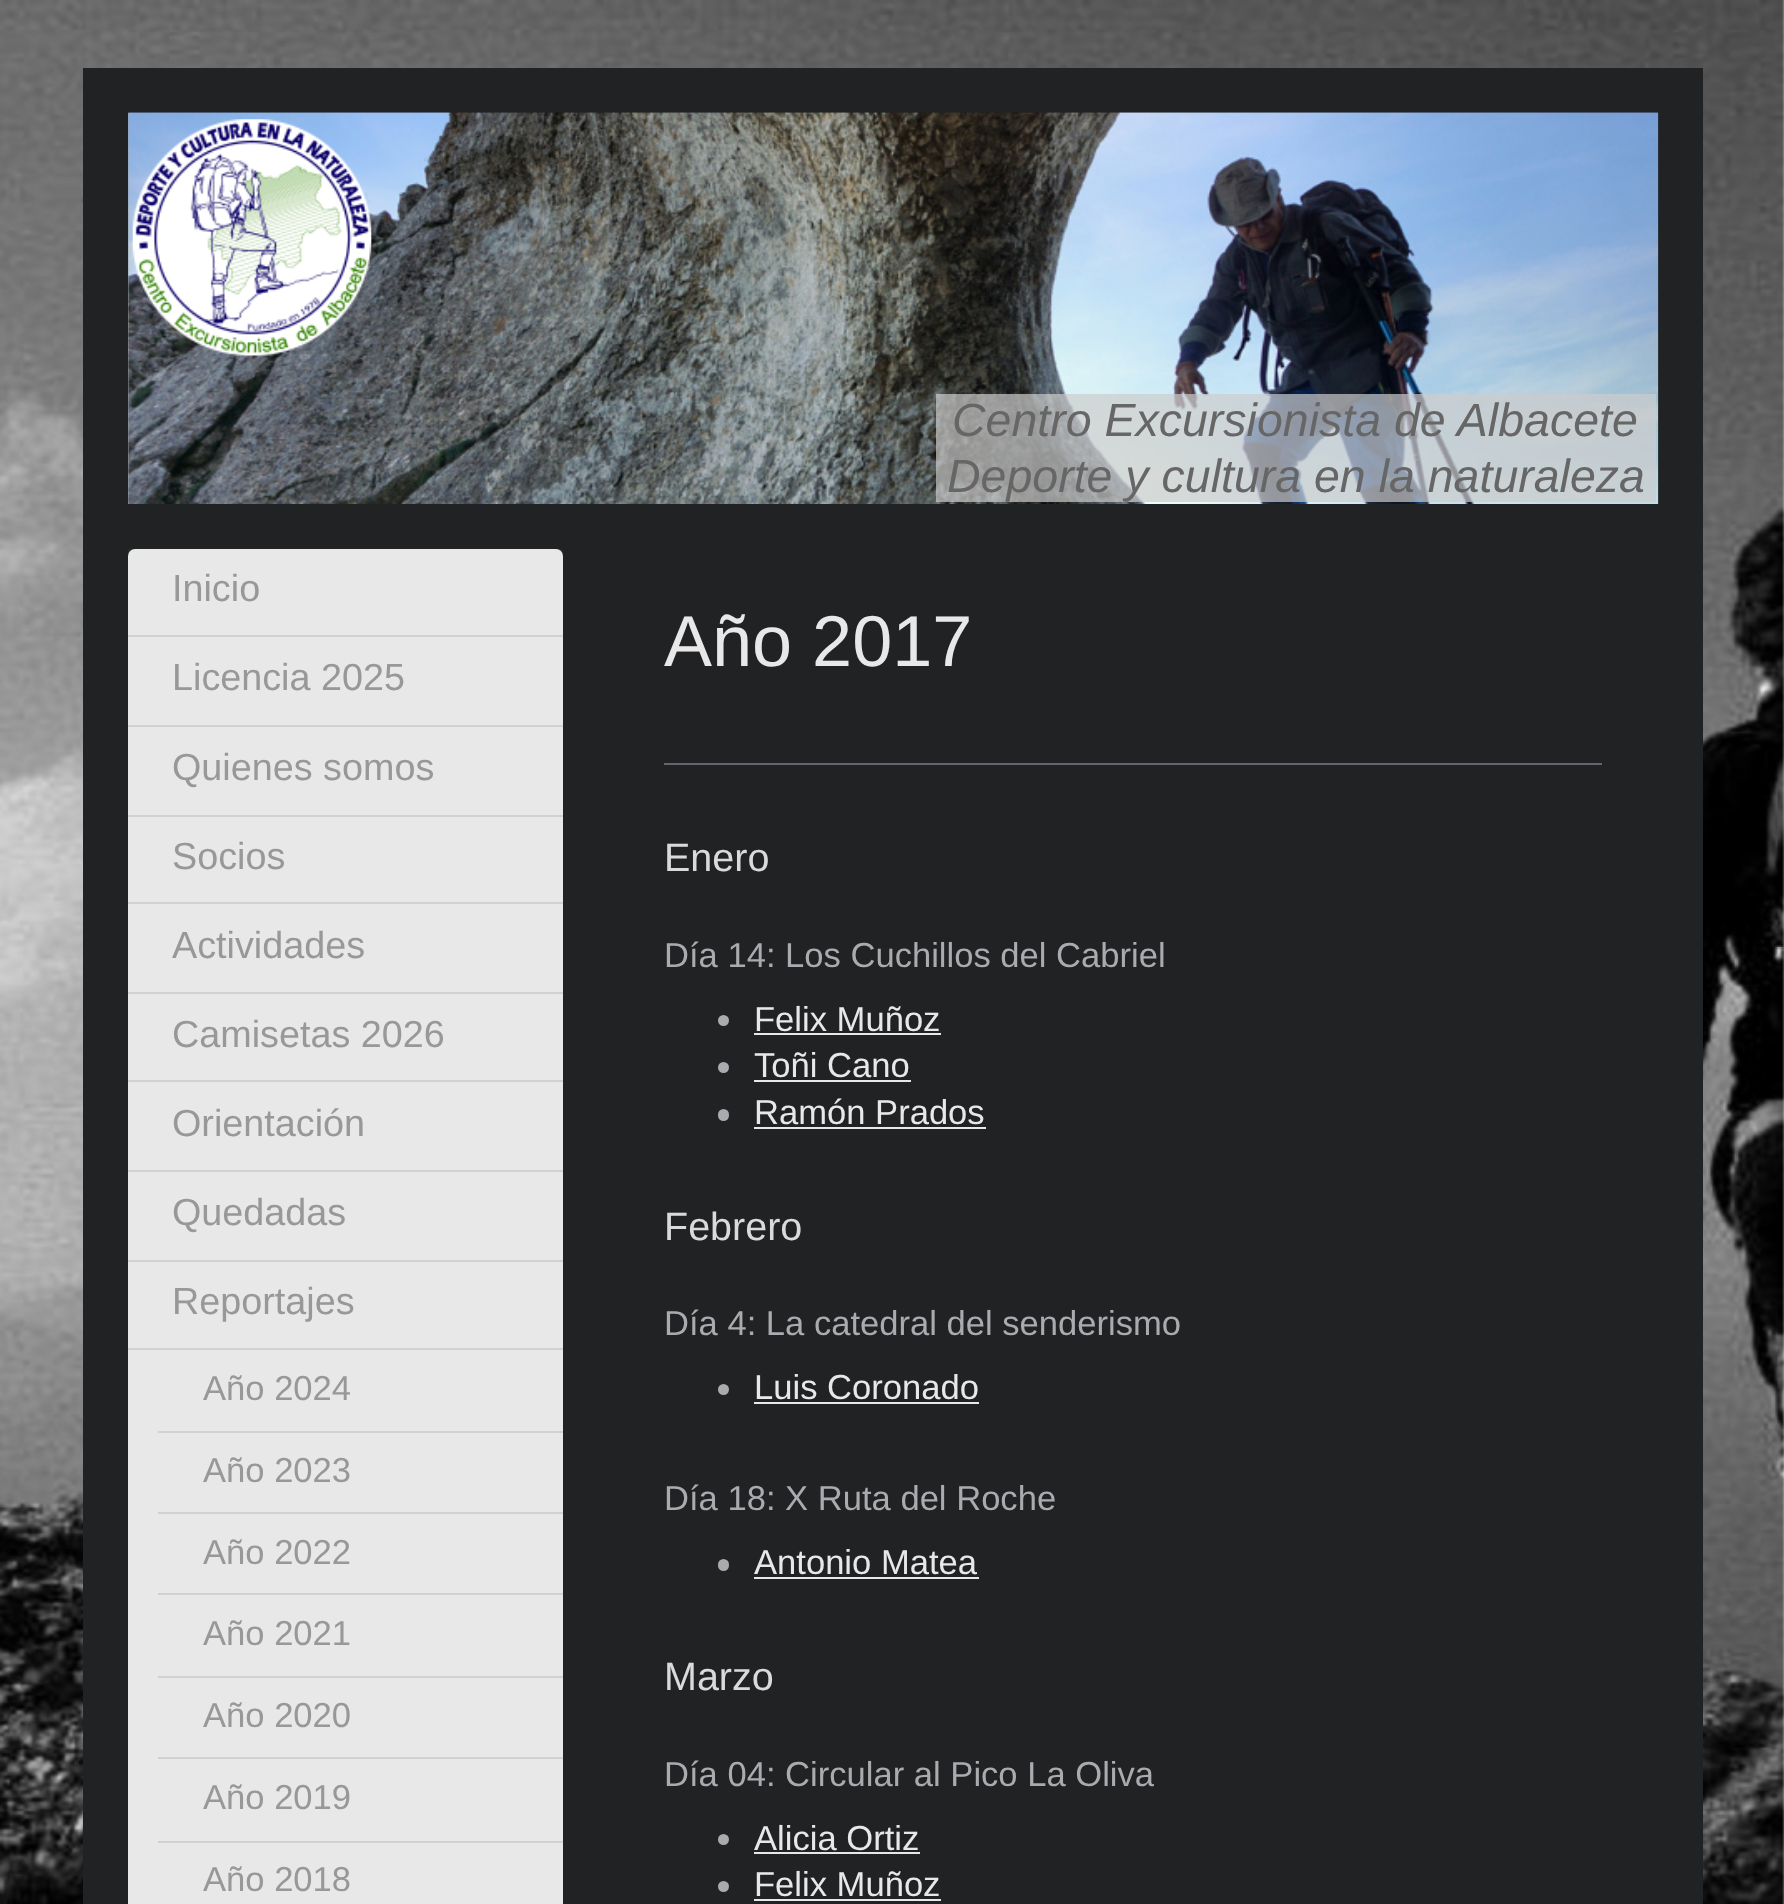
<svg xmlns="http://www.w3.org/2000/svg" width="1784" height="1904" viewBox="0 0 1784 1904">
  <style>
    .t1 { font: italic 46.5px Liberation Sans; fill: #666; }
    .t2 { font: 37.75px Liberation Sans; fill: #989898; }
    .t3 { font: 34.6px Liberation Sans; fill: #989898; }
    .t4 { font: 72px Liberation Sans; fill: #e8e8e8; }
    .t5 { font: 39.5px Liberation Sans; fill: #d9dadb; }
    .t6 { font: 34.6px Liberation Sans; fill: #a9abaf; }
    .t7 { font: 34.6px Liberation Sans; fill: #e8e8e8; }
  </style>
  <rect width="100%" height="100%" fill="#fff"/>
  <image x="0" y="0" width="1784" height="1904" href="images/1.png"/>
  <rect x="83" y="68" width="1620" height="1836" fill="#212224"/>
  <image x="128" y="112" width="1531" height="392" href="images/2.png"/>
  <rect x="128" y="113" width="1" height="391" fill="#a0a0a0"/>
  <image x="128" y="112" width="1531" height="392" href="images/3.png"/>
  <image x="132" y="119" width="240" height="237" href="images/4.png"/>
  <rect x="936" y="394" width="720" height="108" fill="#ccccccb3"/>
  <text x="952" y="436" class="t1">Centro Excursionista de Albacete</text>
  <text x="947" y="492" class="t1">Deporte y cultura en la naturaleza</text>
  <rect x="128" y="549" width="435" height="7" fill="#28292b"/>
  <rect x="128" y="549" width="435" height="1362" rx="7" fill="#e8e8e8"/>
  <rect x="128" y="635" width="435" height="2" fill="#d1d1d1"/>
  <text x="172" y="601" class="t2">Inicio</text>
  <rect x="128" y="725" width="435" height="2" fill="#d1d1d1"/>
  <text x="172" y="690" class="t2">Licencia 2025</text>
  <rect x="128" y="815" width="435" height="2" fill="#d1d1d1"/>
  <text x="172" y="780" class="t2">Quienes somos</text>
  <rect x="128" y="902" width="435" height="2" fill="#d1d1d1"/>
  <text x="172" y="869" class="t2">Socios</text>
  <rect x="128" y="992" width="435" height="2" fill="#d1d1d1"/>
  <text x="172" y="958" class="t2">Actividades</text>
  <rect x="128" y="1080" width="435" height="2" fill="#d1d1d1"/>
  <text x="172" y="1047" class="t2">Camisetas 2026</text>
  <rect x="128" y="1170" width="435" height="2" fill="#d1d1d1"/>
  <text x="172" y="1136" class="t2">Orientación</text>
  <rect x="128" y="1260" width="435" height="2" fill="#d1d1d1"/>
  <text x="172" y="1225" class="t2">Quedadas</text>
  <rect x="128" y="1348" width="435" height="2" fill="#d1d1d1"/>
  <text x="172" y="1314" class="t2">Reportajes</text>
  <rect x="158" y="1431" width="405" height="2" fill="#d1d1d1"/>
  <text x="203" y="1400" class="t3">Año 2024</text>
  <rect x="158" y="1512" width="405" height="2" fill="#d1d1d1"/>
  <text x="203" y="1482" class="t3">Año 2023</text>
  <rect x="158" y="1593" width="405" height="2" fill="#d1d1d1"/>
  <text x="203" y="1564" class="t3">Año 2022</text>
  <rect x="158" y="1676" width="405" height="2" fill="#d1d1d1"/>
  <text x="203" y="1645" class="t3">Año 2021</text>
  <rect x="158" y="1757" width="405" height="2" fill="#d1d1d1"/>
  <text x="203" y="1727" class="t3">Año 2020</text>
  <rect x="158" y="1841" width="405" height="2" fill="#d1d1d1"/>
  <text x="203" y="1809" class="t3">Año 2019</text>
  <text x="203" y="1891" class="t3">Año 2018</text>
  <text x="664" y="666" class="t4">Año 2017</text>
  <rect x="664" y="763" width="938" height="2" fill="#63666c"/>
  <text x="664" y="871" class="t5">Enero</text>
  <text x="664" y="967" class="t6">Día 14: Los Cuchillos del Cabriel</text>
  <circle cx="723.5" cy="1020.5" r="5.5" fill="#a9abaf"/>
  <text x="754" y="1031" class="t7">Felix Muñoz</text>
  <rect x="754" y="1033" width="187" height="2" fill="#e8e8e8"/>
  <circle cx="723.5" cy="1067.5" r="5.5" fill="#a9abaf"/>
  <text x="754" y="1077" class="t7">Toñi Cano</text>
  <rect x="754" y="1080" width="157" height="2" fill="#e8e8e8"/>
  <rect x="718" y="1109" width="11" height="12" rx="5.5" fill="#a9abaf"/>
  <text x="754" y="1124" class="t7">Ramón Prados</text>
  <rect x="754" y="1127" width="232" height="2" fill="#e8e8e8"/>
  <text x="664" y="1240" class="t5">Febrero</text>
  <text x="664" y="1335" class="t6">Día 4: La catedral del senderismo</text>
  <circle cx="723.5" cy="1389.5" r="5.5" fill="#a9abaf"/>
  <text x="754" y="1399" class="t7">Luis Coronado</text>
  <rect x="754" y="1402" width="225" height="2" fill="#e8e8e8"/>
  <text x="664" y="1510" class="t6">Día 18: X Ruta del Roche</text>
  <rect x="718" y="1559" width="11" height="12" rx="5.5" fill="#a9abaf"/>
  <text x="754" y="1574" class="t7">Antonio Matea</text>
  <rect x="754" y="1577" width="225" height="2" fill="#e8e8e8"/>
  <text x="664" y="1690" class="t5">Marzo</text>
  <text x="664" y="1786" class="t6">Día 04: Circular al Pico La Oliva</text>
  <circle cx="723.5" cy="1839.5" r="5.5" fill="#a9abaf"/>
  <text x="754" y="1850" class="t7">Alicia Ortiz</text>
  <rect x="754" y="1852" width="166" height="2" fill="#e8e8e8"/>
  <circle cx="723.5" cy="1886.5" r="5.5" fill="#a9abaf"/>
  <text x="754" y="1896" class="t7">Felix Muñoz</text>
  <rect x="754" y="1899" width="187" height="2" fill="#e8e8e8"/>
</svg>
